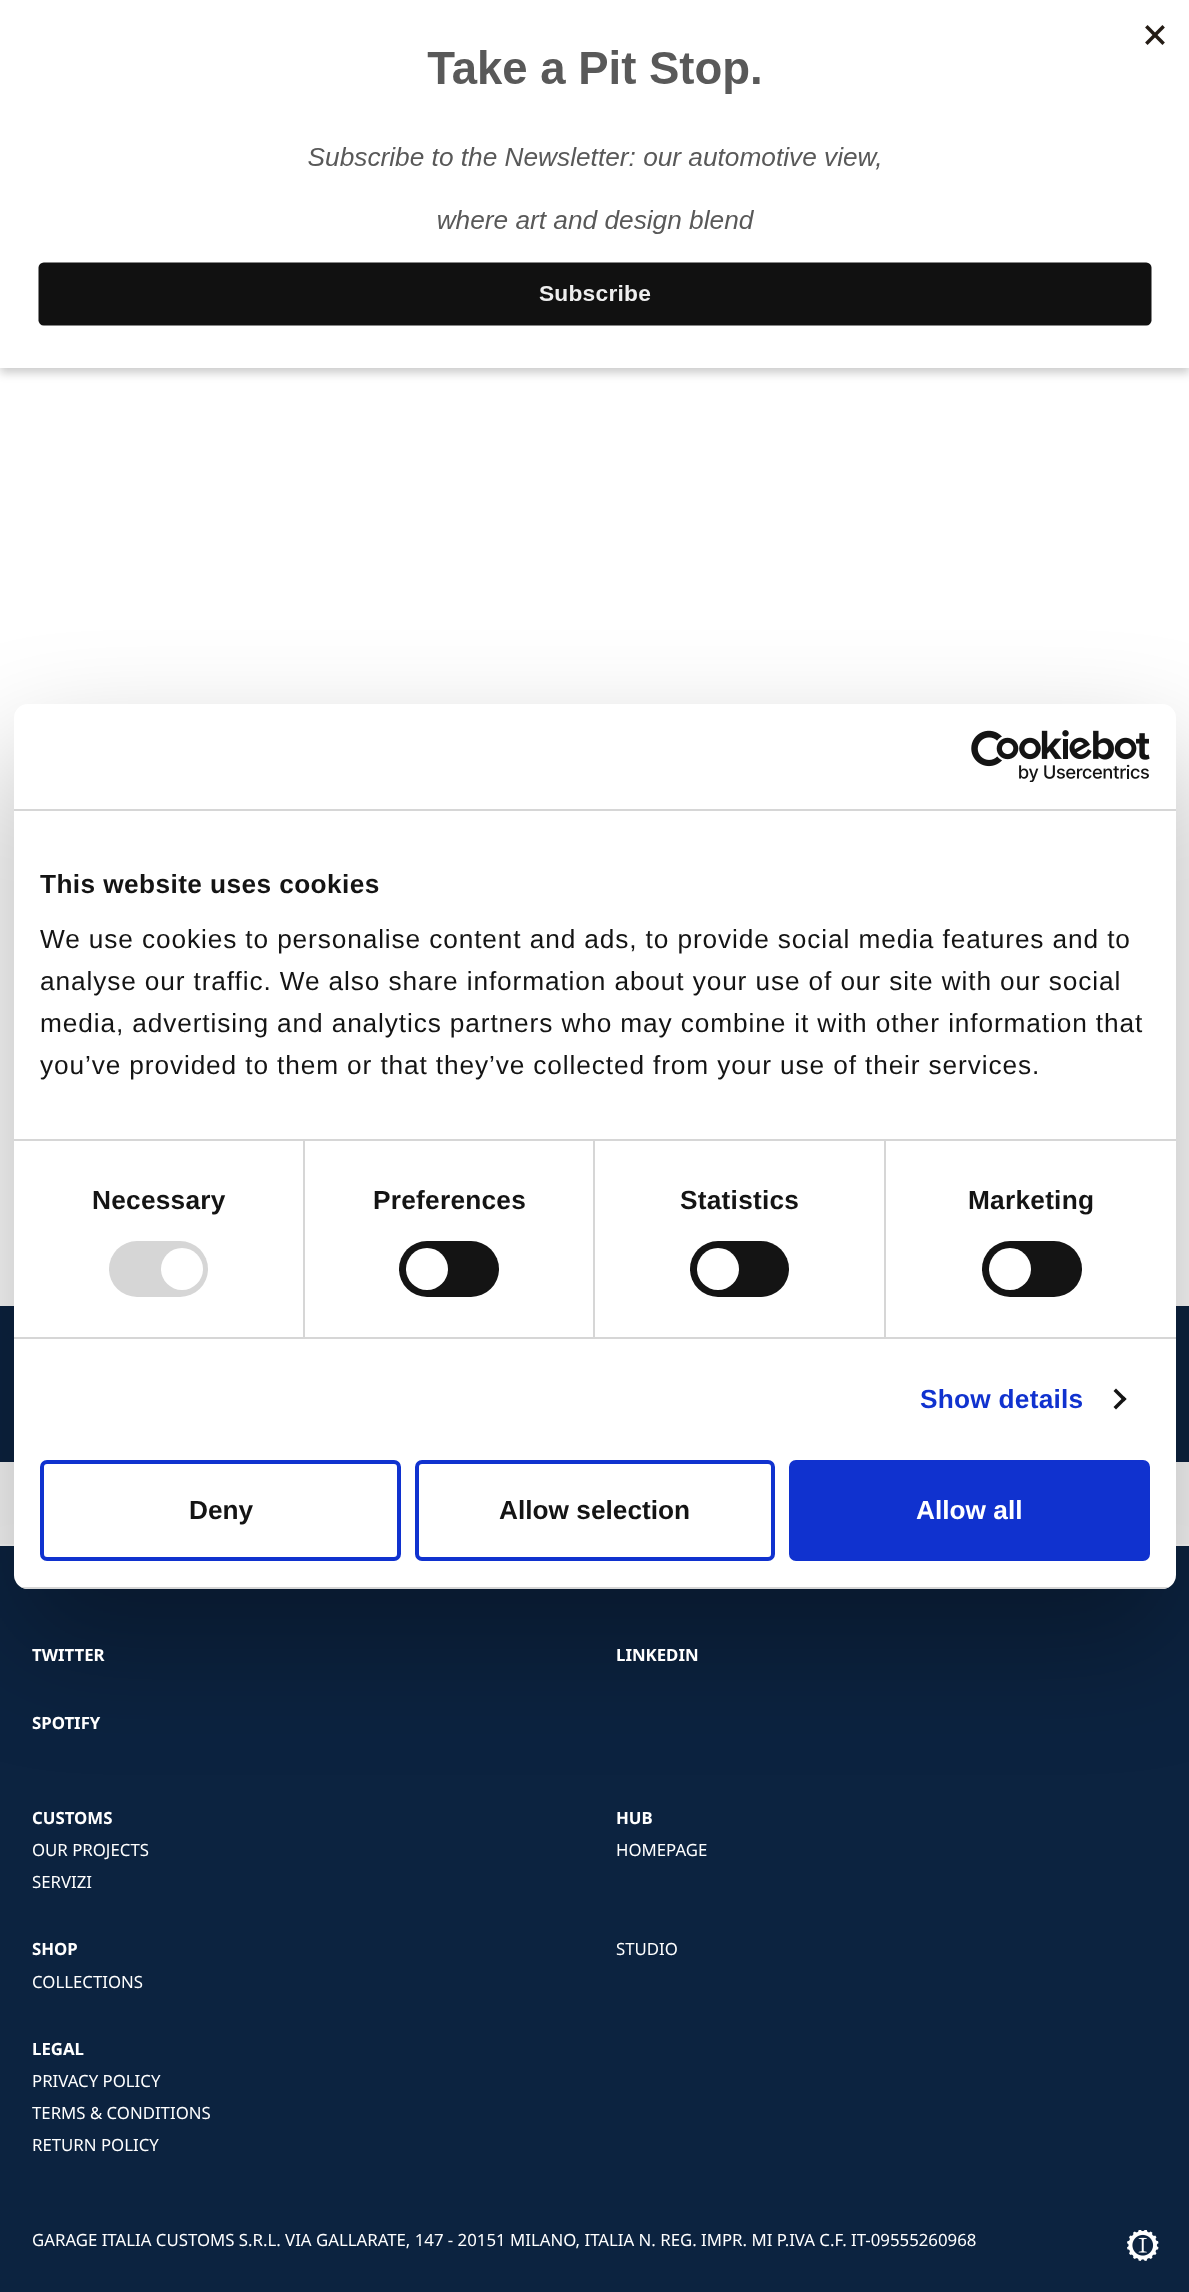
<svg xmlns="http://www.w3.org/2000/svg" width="1189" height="2292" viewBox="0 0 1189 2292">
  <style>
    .t1 { font: bold 26.25px Liberation Sans; letter-spacing: 0.4px; fill: #141414; }
    .t2 { font: 26.25px Liberation Sans; letter-spacing: 0.88px; fill: #141414; }
    .t3 { font: bold 26.25px Liberation Sans; letter-spacing: 0.25px; fill: #141414; }
    .t4 { font: bold 26.25px Liberation Sans; letter-spacing: 0.25px; fill: #1032cf; }
    .t5 { font: bold 26.25px Liberation Sans; fill: #141414; }
    .t6 { font: bold 26.25px Liberation Sans; fill: #fff; }
    .t7 { font: bold 16.8px Noto Sans; fill: #fff; }
    .t8 { font: 16.8px Noto Sans; fill: #fff; }
  </style>
  <defs>
    <clipPath id="clip1"><rect x="14" y="704" width="1162" height="885" rx="14"/></clipPath>
  </defs>
  <rect width="100%" height="100%" fill="#fff"/>
  <rect x="0" y="5" width="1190" height="368" fill="#00000033" filter="blur(5px)"/>
  <rect x="0" y="0" width="1189" height="368" fill="#fff"/>
  <image x="38" y="25" width="1127" height="301" href="images/1.png"/>
  <rect x="0" y="1306" width="1189" height="156" fill="#0c2340"/>
  <rect x="0" y="1462" width="1189" height="82" fill="#fafafa"/>
  <rect x="0" y="1546" width="1189" height="746" fill="#0c2340"/>
  <rect x="14" y="760" width="1162" height="885" rx="14" fill="#0000004d" filter="blur(59.5px)"/>
  <rect x="14" y="704" width="1162" height="885" rx="14" fill="#fff"/>
  <rect x="14" y="809" width="1162" height="2" fill="#d6d6d6"/>
  <image x="971" y="730" width="179" height="52" href="images/2.png"/>
  <rect x="14" y="1139" width="1162" height="2" fill="#d6d6d6"/>
  <text x="40" y="893" class="t1">This website uses cookies</text>
  <text x="40" y="948" class="t2">We use cookies to personalise content and ads, to provide social media features and to</text>
  <text x="40" y="990" class="t2">analyse our traffic. We also share information about your use of our site with our social</text>
  <text x="40" y="1032" class="t2">media, advertising and analytics partners who may combine it with other information that</text>
  <text x="40" y="1074" class="t2">you’ve provided to them or that they’ve collected from your use of their services.</text>
  <rect x="14" y="1337" width="1162" height="2" fill="#d6d6d6"/>
  <rect x="303" y="1141" width="2" height="196" fill="#d6d6d6"/>
  <text x="92" y="1209" class="t3">Necessary</text>
  <rect x="109" y="1241" width="99" height="56" rx="28" fill="#d6d6d6"/>
  <circle cx="182" cy="1269" r="21" fill="#fff"/>
  <rect x="593" y="1141" width="2" height="196" fill="#d6d6d6"/>
  <text x="373" y="1209" class="t3">Preferences</text>
  <rect x="399" y="1241" width="100" height="56" rx="28" fill="#141414"/>
  <circle cx="427" cy="1269" r="21" fill="#fff"/>
  <rect x="884" y="1141" width="2" height="196" fill="#d6d6d6"/>
  <text x="680" y="1209" class="t3">Statistics</text>
  <rect x="690" y="1241" width="99" height="56" rx="28" fill="#141414"/>
  <circle cx="718" cy="1269" r="21" fill="#fff"/>
  <text x="968" y="1209" class="t3">Marketing</text>
  <rect x="982" y="1241" width="100" height="56" rx="28" fill="#141414"/>
  <circle cx="1010" cy="1269" r="21" fill="#fff"/>
  <text x="920" y="1408" class="t4">Show details</text>
  <path d="M1116 1388.5L1126.5 1399L1124 1401.5L1113.5 1391Z" fill="#141414"/>
  <path d="M1124 1396.5L1126.5 1399L1116 1409.5L1113.5 1407Z" fill="#141414"/>
  <g clip-path="url(#clip1)">
    <rect x="14" y="1587" width="1162" height="2" fill="#d6d6d6"/>
  </g>
  <rect x="42" y="1462" width="357" height="97" rx="5" fill="none" stroke="#1032cf" stroke-width="4"/>
  <text x="189" y="1519" class="t5">Deny</text>
  <rect x="417" y="1462" width="356" height="97" rx="5" fill="none" stroke="#1032cf" stroke-width="4"/>
  <text x="499" y="1519" class="t5">Allow selection</text>
  <rect x="791" y="1462" width="357" height="97" rx="5" fill="#1032cf" stroke="#1032cf" stroke-width="4"/>
  <text x="916" y="1519" class="t6">Allow all</text>
  <text x="32" y="1661" class="t7">TWITTER</text>
  <text x="616" y="1661" class="t7">LINKEDIN</text>
  <text x="32" y="1729" class="t7">SPOTIFY</text>
  <text x="32" y="1824" class="t7">CUSTOMS</text>
  <text x="32" y="1856" class="t8">OUR PROJECTS</text>
  <text x="32" y="1888" class="t8">SERVIZI</text>
  <text x="616" y="1824" class="t7">HUB</text>
  <text x="616" y="1856" class="t8">HOMEPAGE</text>
  <text x="32" y="1955" class="t7">SHOP</text>
  <text x="32" y="1988" class="t8">COLLECTIONS</text>
  <text x="616" y="1955" class="t8">STUDIO</text>
  <text x="32" y="2055" class="t7">LEGAL</text>
  <text x="32" y="2087" class="t8">PRIVACY POLICY</text>
  <text x="32" y="2119" class="t8">TERMS &amp; CONDITIONS</text>
  <text x="32" y="2151" class="t8">RETURN POLICY</text>
  <text x="32" y="2246" class="t8">GARAGE ITALIA CUSTOMS S.R.L. VIA GALLARATE, 147 - 20151 MILANO, ITALIA N. REG. IMPR. MI P.IVA C.F. IT-09555260968</text>
  <image x="1127" y="2230" width="32" height="31" href="images/3.png"/>
</svg>
